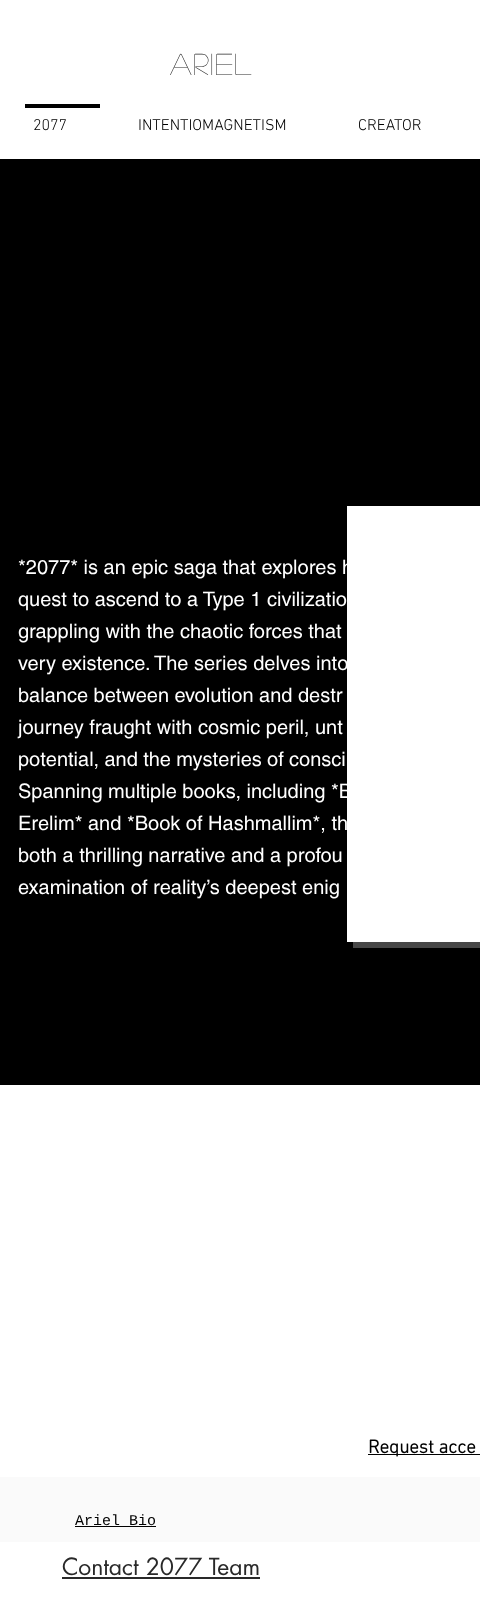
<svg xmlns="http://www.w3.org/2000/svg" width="480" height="1619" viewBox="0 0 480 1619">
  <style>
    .t1 { font: 30px 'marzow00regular'; letter-spacing: 1.5px; fill: #292929; }
    .t2 { font: 300 16px 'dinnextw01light'; fill: #000; }
    .t3 { font: 20px helvetica; fill: #fff; }
    .t4 { font: bold 19px 'dinnextw01light'; fill: #000; }
    .t5 { font: 15px Liberation Mono; fill: #000; }
    .t6 { font: 23px futura; fill: #292929; }
  </style>
  <rect width="100%" height="100%" fill="#fff"/>
  <text x="170" y="75" class="t1">ARIEl</text>
  <rect x="25" y="104" width="75" height="4" fill="#000"/>
  <text x="33" y="130" class="t2">2077</text>
  <text x="138" y="130" class="t2">INTENTIOMAGNETISM</text>
  <text x="358" y="130" class="t2">CREATOR</text>
  <rect x="0" y="159" width="480" height="926" fill="#000"/>
  <text x="18" y="574" class="t3">*2077* is an epic saga that explores h</text>
  <text x="18" y="606" class="t3">quest to ascend to a Type 1 civilizatio</text>
  <text x="18" y="638" class="t3">grappling with the chaotic forces that</text>
  <text x="18" y="670" class="t3">very existence. The series delves into</text>
  <text x="18" y="702" class="t3">balance between evolution and destr</text>
  <text x="18" y="734" class="t3">journey fraught with cosmic peril, unt</text>
  <text x="18" y="766" word-spacing="-0.25" class="t3">potential, and the mysteries of consci</text>
  <text x="18" y="798" class="t3">Spanning multiple books, including *B</text>
  <text x="18" y="830" class="t3">Erelim* and *Book of Hashmallim*, th</text>
  <text x="18" y="862" class="t3">both a thrilling narrative and a profou</text>
  <text x="18" y="894" class="t3">examination of reality’s deepest enig</text>
  <path d="M353 942V948H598V512H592V942Z" fill="#474747"/>
  <rect x="347" y="506" width="133" height="436" fill="#fff"/>
  <rect x="368" y="1454" width="112" height="1" fill="#000"/>
  <text x="368" y="1453" class="t4">Request acce</text>
  <rect x="0" y="1477" width="480" height="65" fill="#fafafa"/>
  <text x="75" y="1525" class="t5">Ariel Bio</text>
  <rect x="75" y="1526" width="81" height="1" fill="#000"/>
  <text x="62" y="1575" class="t6">Contact 2077 Team</text>
  <rect x="62" y="1577" width="198" height="2" fill="#292929"/>
</svg>
